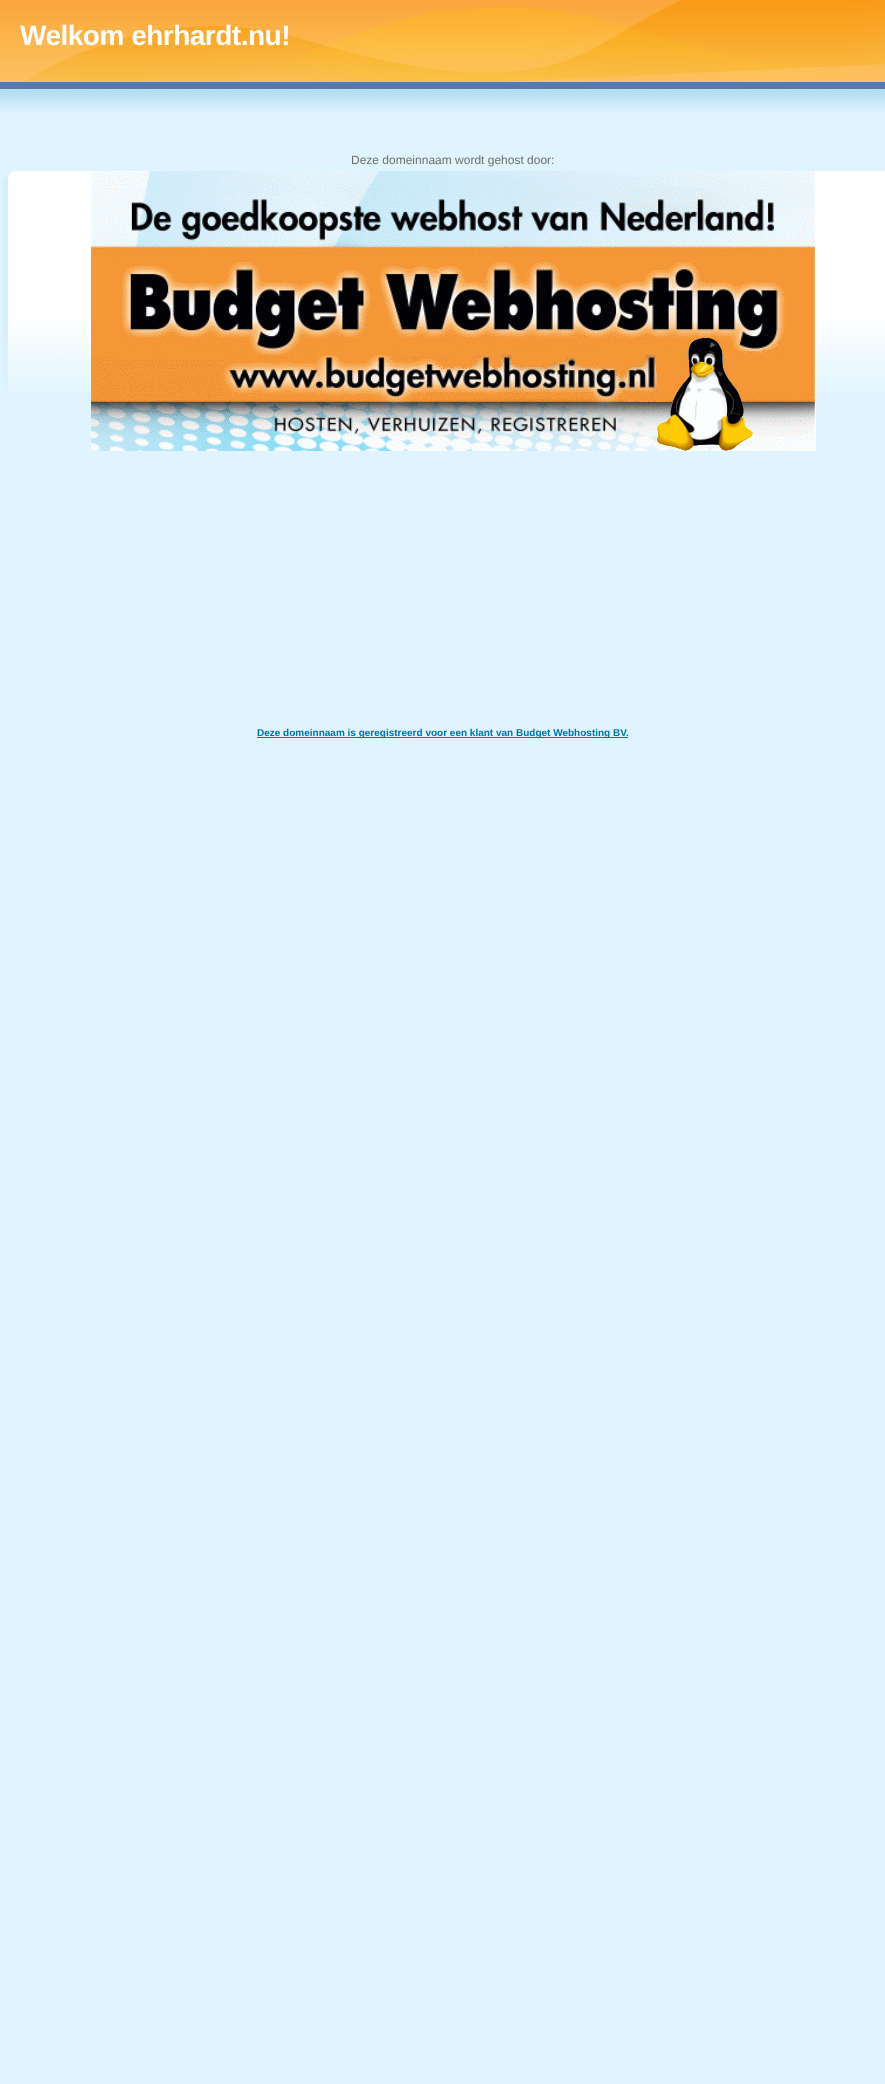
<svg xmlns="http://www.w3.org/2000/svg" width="885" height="2084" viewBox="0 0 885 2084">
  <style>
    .t1 { font: bold 28px Liberation Sans; letter-spacing: -0.5px; fill: #fff; }
    .t2 { font: 12px Liberation Sans; fill: #6f6f6f; }
    .t3 { font: bold 10px Liberation Sans; fill: #0075a9; }
  </style>
  <rect width="100%" height="100%" fill="#dff4fe"/>
  <image x="0" y="0" width="885" height="112" href="images/1.png"/>
  <image x="24" y="0" width="861" height="82" href="images/2.png"/>
  <text x="20" y="45" class="t1">Welkom ehrhardt.nu!</text>
  <text x="351" y="164" class="t2">Deze domeinnaam wordt gehost door:</text>
  <image x="2" y="169" width="883" height="224" href="images/3.png"/>
  <image x="91" y="171" width="725" height="280" href="images/4.png"/>
  <rect x="257" y="737" width="371" height="1" fill="#0075a9"/>
  <text x="257" y="736" class="t3">Deze domeinnaam is geregistreerd voor een klant van Budget Webhosting BV.</text>
</svg>
